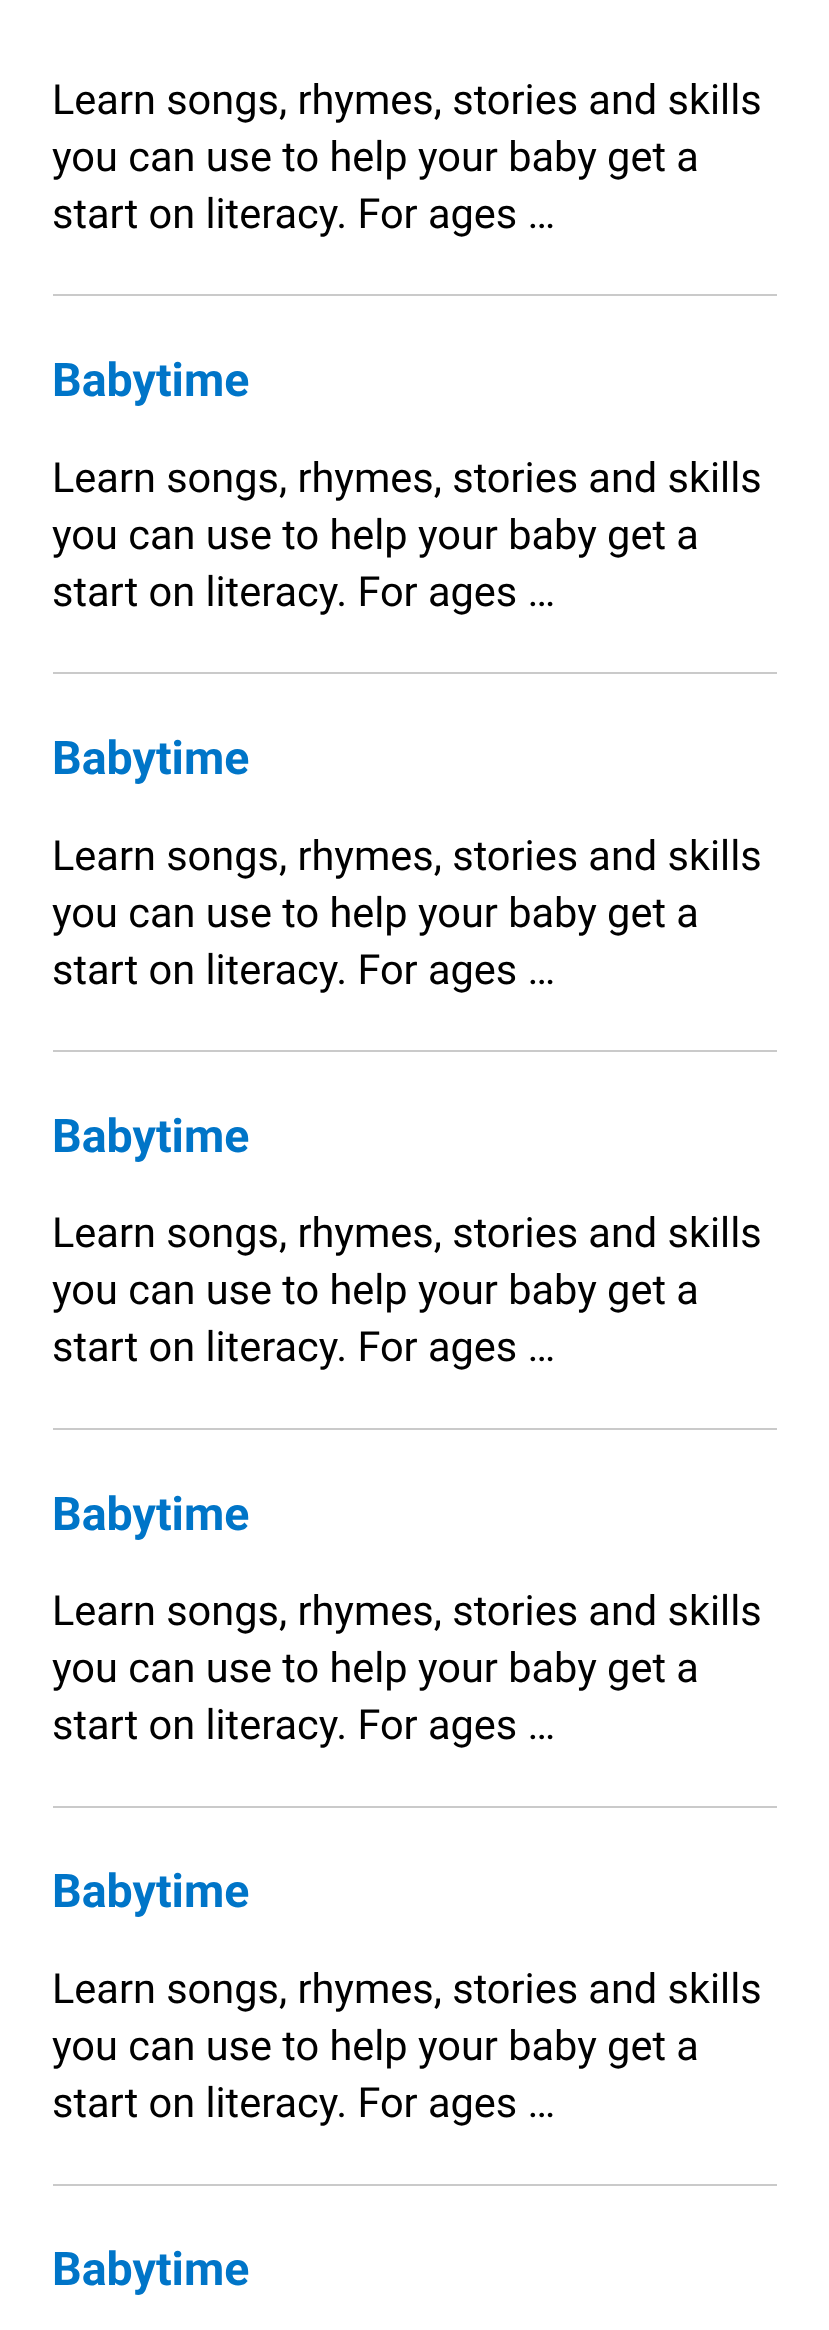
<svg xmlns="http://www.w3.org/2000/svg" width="829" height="2330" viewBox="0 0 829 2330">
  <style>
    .t1 { font: 41.5px Roboto; fill: #000; }
    .t2 { font: bold 46.5px Roboto; fill: #0075c8; }
  </style>
  <rect width="100%" height="100%" fill="#fff"/>
  <text x="52" y="114" class="t1">Learn songs, rhymes, stories and skills</text>
  <text x="52" y="171" class="t1">you can use to help your baby get a</text>
  <text x="52" y="228" class="t1">start on literacy. For ages …</text>
  <rect x="53" y="294" width="724" height="2" fill="#cacaca"/>
  <text x="52" y="396" class="t2">Babytime</text>
  <text x="52" y="492" class="t1">Learn songs, rhymes, stories and skills</text>
  <text x="52" y="549" class="t1">you can use to help your baby get a</text>
  <text x="52" y="606" class="t1">start on literacy. For ages …</text>
  <rect x="53" y="672" width="724" height="2" fill="#cacaca"/>
  <text x="52" y="774" class="t2">Babytime</text>
  <text x="52" y="870" class="t1">Learn songs, rhymes, stories and skills</text>
  <text x="52" y="927" class="t1">you can use to help your baby get a</text>
  <text x="52" y="984" class="t1">start on literacy. For ages …</text>
  <rect x="53" y="1050" width="724" height="2" fill="#cacaca"/>
  <text x="52" y="1152" class="t2">Babytime</text>
  <text x="52" y="1247" class="t1">Learn songs, rhymes, stories and skills</text>
  <text x="52" y="1304" class="t1">you can use to help your baby get a</text>
  <text x="52" y="1361" class="t1">start on literacy. For ages …</text>
  <rect x="53" y="1428" width="724" height="2" fill="#cacaca"/>
  <text x="52" y="1530" class="t2">Babytime</text>
  <text x="52" y="1625" class="t1">Learn songs, rhymes, stories and skills</text>
  <text x="52" y="1682" class="t1">you can use to help your baby get a</text>
  <text x="52" y="1739" class="t1">start on literacy. For ages …</text>
  <rect x="53" y="1806" width="724" height="2" fill="#cacaca"/>
  <text x="52" y="1907" class="t2">Babytime</text>
  <text x="52" y="2003" class="t1">Learn songs, rhymes, stories and skills</text>
  <text x="52" y="2060" class="t1">you can use to help your baby get a</text>
  <text x="52" y="2117" class="t1">start on literacy. For ages …</text>
  <rect x="53" y="2184" width="724" height="2" fill="#cacaca"/>
  <text x="52" y="2285" class="t2">Babytime</text>
</svg>
